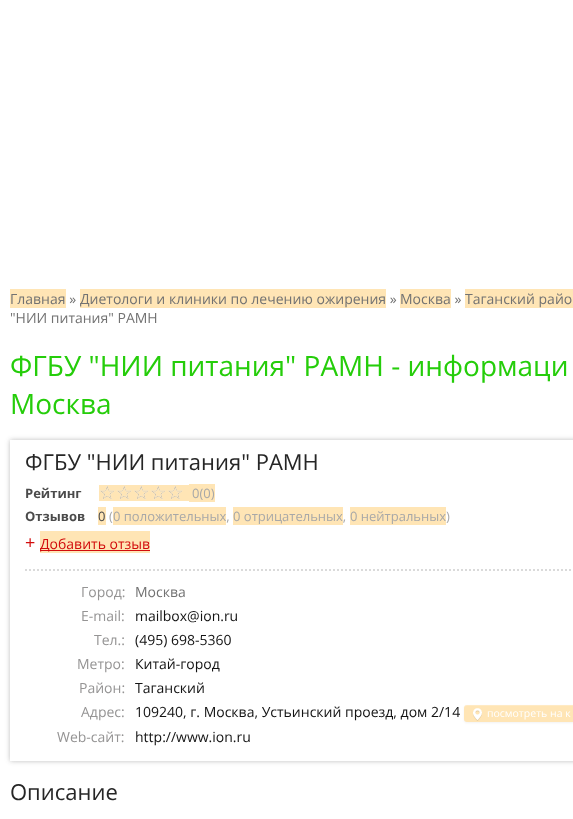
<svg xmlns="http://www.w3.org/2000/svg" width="573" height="819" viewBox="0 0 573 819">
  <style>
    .t1 { font: 14px Open Sans; fill: #727272; }
    .t2 { font: 28px Open Sans; fill: #25cd0a; }
    .t3 { font: 22px Open Sans; fill: #262626; }
    .t4 { font: bold 13px Open Sans; fill: #4b4b4b; }
    .t5 { font: 13px Open Sans; fill: #a8a8a8; }
    .t6 { font: 13px Open Sans; fill: #4b4b4b; }
    .t7 { font: 18px Open Sans; fill: #d20c0c; }
    .t8 { font: 14px Open Sans; fill: #d20c0c; }
    .t9 { font: 14px Open Sans; fill: #959494; }
    .t10 { font: 14px Open Sans; fill: #131313; }
    .t11 { font: 10.5px Open Sans; fill: #fff; }
  </style>
  <defs>
    <clipPath id="clip1"><path d="M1 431H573V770H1ZM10 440H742V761H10Z" clip-rule="evenodd"/></clipPath>
  </defs>
  <rect width="100%" height="100%" fill="#fff"/>
  <rect x="10" y="289" width="56" height="19" fill="#ffe5b5"/>
  <text x="10" y="304" class="t1">Главная »</text>
  <rect x="80" y="289" width="306" height="19" fill="#ffe5b5"/>
  <text x="80" y="304" class="t1">Диетологи и клиники по лечению ожирения »</text>
  <rect x="400" y="289" width="51" height="19" fill="#ffe5b5"/>
  <text x="400" y="304" class="t1">Москва »</text>
  <rect x="465" y="289" width="108" height="19" fill="#ffe5b5"/>
  <text x="465" y="304" class="t1">Таганский райо</text>
  <text x="10" y="323" class="t1">"НИИ питания" РАМН</text>
  <text x="10" y="376" class="t2">ФГБУ "НИИ питания" РАМН - информаци</text>
  <text x="10" y="414" class="t2">Москва</text>
  <g clip-path="url(#clip1)">
    <rect x="10" y="440" width="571" height="321" fill="#2828284d" filter="blur(2.5px)"/>
  </g>
  <text x="25" y="470" class="t3">ФГБУ "НИИ питания" РАМН</text>
  <text x="25" y="498" class="t4">Рейтинг</text>
  <rect x="99" y="485" width="90" height="16" fill="#ffe5b5"/>
  <image x="99" y="485" width="16" height="15" href="images/1.png"/>
  <image x="116" y="485" width="16" height="15" href="images/1.png"/>
  <image x="133" y="485" width="16" height="15" href="images/1.png"/>
  <image x="150" y="485" width="16" height="15" href="images/1.png"/>
  <image x="167" y="485" width="16" height="15" href="images/1.png"/>
  <rect x="189" y="484" width="26" height="18" fill="#ffe5b5"/>
  <text x="192" y="498" class="t5">0(0)</text>
  <text x="25" y="521" class="t4">Отзывов</text>
  <rect x="98" y="507" width="8" height="18" fill="#ffe5b5"/>
  <text x="98" y="521" class="t6">0</text>
  <text x="109" y="521" class="t5">(</text>
  <rect x="113" y="507" width="113" height="18" fill="#ffe5b5"/>
  <text x="113" y="521" class="t5">0 положительных,</text>
  <rect x="233" y="507" width="110" height="18" fill="#ffe5b5"/>
  <text x="233" y="521" class="t5">0 отрицательных,</text>
  <rect x="350" y="507" width="96" height="18" fill="#ffe5b5"/>
  <text x="350" y="521" class="t5">0 нейтральных)</text>
  <text x="25" y="549" class="t7">+</text>
  <rect x="40" y="531" width="110" height="22" fill="#ffe5b5"/>
  <rect x="40" y="550" width="110" height="1" fill="#d20c0c"/>
  <text x="40" y="549" class="t8">Добавить отзыв</text>
  <path d="M25 570H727" fill="none" stroke="#dadada" stroke-width="2" stroke-dasharray="2 2"/>
  <text x="81" y="597" class="t9">Город:</text>
  <text x="135" y="597" class="t1">Москва</text>
  <text x="81" y="621" class="t9">E-mail:</text>
  <text x="135" y="621" class="t10">mailbox@ion.ru</text>
  <text x="94" y="645" class="t9">Тел.:</text>
  <text x="135" y="645" class="t10">(495) 698-5360</text>
  <text x="77" y="669" class="t9">Метро:</text>
  <text x="135" y="669" class="t10">Китай-город</text>
  <text x="79" y="693" class="t9">Район:</text>
  <text x="135" y="693" class="t10">Таганский</text>
  <text x="81" y="717" class="t9">Адрес:</text>
  <text x="135" y="717" class="t10">109240, г. Москва, Устьинский проезд, дом 2/14</text>
  <rect x="464" y="706" width="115" height="17" rx="3" fill="#0000000d" filter="blur(1px)"/>
  <rect x="464" y="705" width="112" height="17" rx="3" fill="#ffe5b5"/>
  <path d="M467 706H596C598 706 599 707 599 709C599 707 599 705 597 705H466C464 705 464 707 464 709C464 707 465 706 467 706Z" fill="#ffffff33"/>
  <image x="473" y="708" width="9" height="13" href="images/2.png"/>
  <text x="487" y="717" class="t11">посмотреть на к</text>
  <text x="57" y="742" class="t9">Web-сайт:</text>
  <text x="135" y="742" class="t10">http://www.ion.ru</text>
  <text x="10" y="800" class="t3">Описание</text>
</svg>
